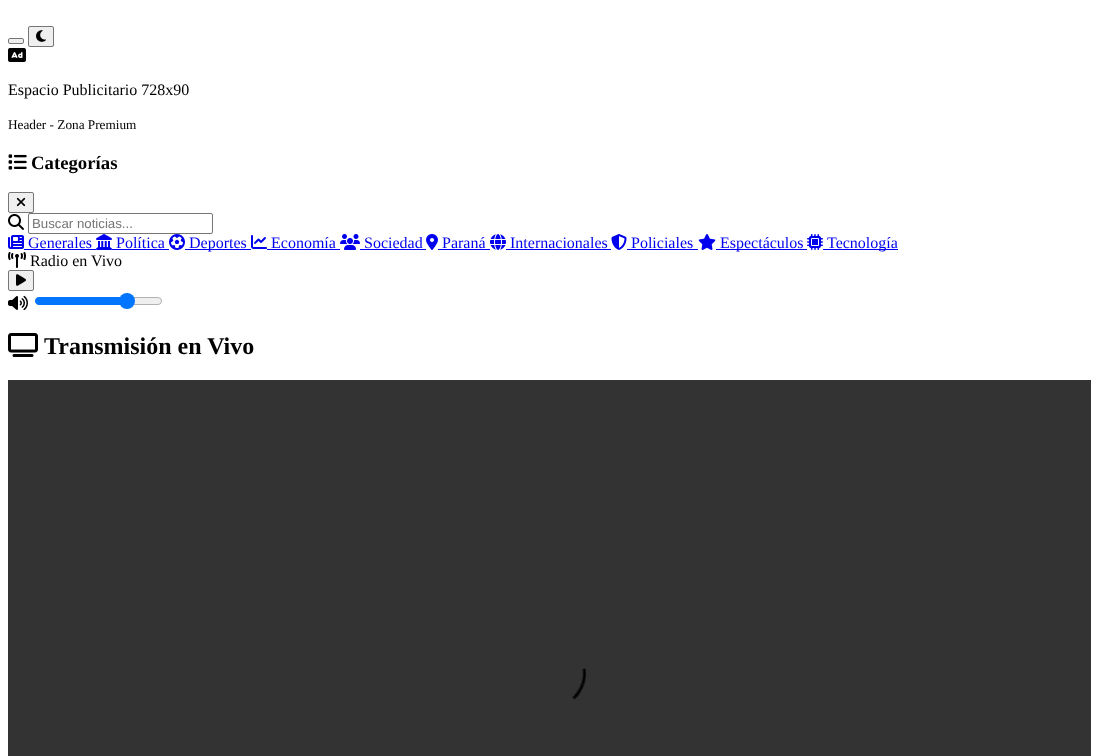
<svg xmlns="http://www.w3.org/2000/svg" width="1099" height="756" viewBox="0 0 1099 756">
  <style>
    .t1 { font: 16px Liberation Serif; fill: #000; }
    .t2 { font: 13.25px Liberation Serif; fill: #000; }
    .t3 { font: bold 18.75px Liberation Serif; fill: #000; }
    .t4 { font: 13.25px Liberation Sans; fill: #757575; }
    .t5 { font: 16px Liberation Serif; fill: #00e; }
    .t6 { font: bold 24px Liberation Serif; fill: #000; }
  </style>
  <rect width="100%" height="100%" fill="#fff"/>
  <rect x="8.5" y="38.5" width="15" height="5" rx="1.5" fill="#efefef" stroke="#767676"/>
  <rect x="28.5" y="26.5" width="25" height="20" rx="1.5" fill="#efefef" stroke="#767676"/>
  <image x="36" y="30" width="10" height="12" href="images/1.png"/>
  <image x="8" y="48" width="18" height="14" href="images/2.png"/>
  <text x="8" y="95" class="t1">Espacio Publicitario 728x90</text>
  <text x="8" y="129" class="t2">Header - Zona Premium</text>
  <image x="8" y="154" width="19" height="16" href="images/3.png"/>
  <text x="31" y="169" class="t3">Categorías</text>
  <rect x="8.5" y="192.5" width="25" height="20" rx="1.5" fill="#efefef" stroke="#767676"/>
  <image x="16" y="197" width="10" height="10" href="images/4.png"/>
  <image x="8" y="214" width="16" height="16" href="images/5.png"/>
  <rect x="28.5" y="213.5" width="184" height="20" rx="1.5" fill="none" stroke="#767676"/>
  <text x="32" y="228" class="t4">Buscar noticias...</text>
  <image x="8" y="235" width="16" height="14" href="images/6.png"/>
  <text x="28" y="248" class="t5">Generales</text>
  <rect x="24" y="249" width="72" height="1" fill="#00e"/>
  <image x="96" y="234" width="16" height="16" href="images/7.png"/>
  <text x="116" y="248" class="t5">Política</text>
  <rect x="112" y="249" width="57" height="1" fill="#00e"/>
  <image x="169" y="234" width="16" height="16" href="images/8.png"/>
  <rect x="185" y="249" width="66" height="1" fill="#00e"/>
  <text x="189" y="248" class="t5">Deportes</text>
  <image x="251" y="235" width="16" height="14" href="images/9.png"/>
  <text x="271" y="248" class="t5">Economía</text>
  <rect x="267" y="249" width="73" height="1" fill="#00e"/>
  <image x="340" y="234" width="20" height="16" href="images/10.png"/>
  <text x="364" y="248" class="t5">Sociedad</text>
  <rect x="360" y="249" width="66" height="1" fill="#00e"/>
  <image x="426" y="234" width="12" height="16" href="images/11.png"/>
  <text x="442" y="248" class="t5">Paraná</text>
  <rect x="438" y="249" width="52" height="1" fill="#00e"/>
  <image x="490" y="234" width="16" height="16" href="images/12.png"/>
  <text x="510" y="248" class="t5">Internacionales</text>
  <rect x="506" y="249" width="105" height="1" fill="#00e"/>
  <image x="611" y="234" width="16" height="16" href="images/13.png"/>
  <text x="631" y="248" class="t5">Policiales</text>
  <rect x="627" y="249" width="71" height="1" fill="#00e"/>
  <image x="698" y="234" width="18" height="16" href="images/14.png"/>
  <rect x="716" y="249" width="91" height="1" fill="#00e"/>
  <text x="720" y="248" class="t5">Espectáculos</text>
  <image x="807" y="234" width="16" height="16" href="images/15.png"/>
  <rect x="823" y="249" width="75" height="1" fill="#00e"/>
  <text x="827" y="248" class="t5">Tecnología</text>
  <image x="8" y="252" width="18" height="16" href="images/16.png"/>
  <text x="30" y="266" class="t1">Radio en Vivo</text>
  <rect x="8.5" y="270.5" width="25" height="20" rx="1.5" fill="#efefef" stroke="#767676"/>
  <image x="16" y="274" width="10" height="12" href="images/17.png"/>
  <image x="8" y="295" width="20" height="16" href="images/18.png"/>
  <rect x="35.5" y="297.5" width="126" height="7" rx="3.5" fill="#efefef" stroke="#b2b2b2"/>
  <path d="M39 297H127V305H39C37 305 35 303 35 301C35 299 37 297 39 297Z" fill="#0075ff"/>
  <circle cx="127" cy="301" r="8" fill="#0075ff"/>
  <image x="8" y="333" width="30" height="24" href="images/19.png"/>
  <text x="44" y="354" class="t6">Transmisión en Vivo</text>
  <image x="8" y="380" width="1083" height="376" href="images/20.png"/>
</svg>
